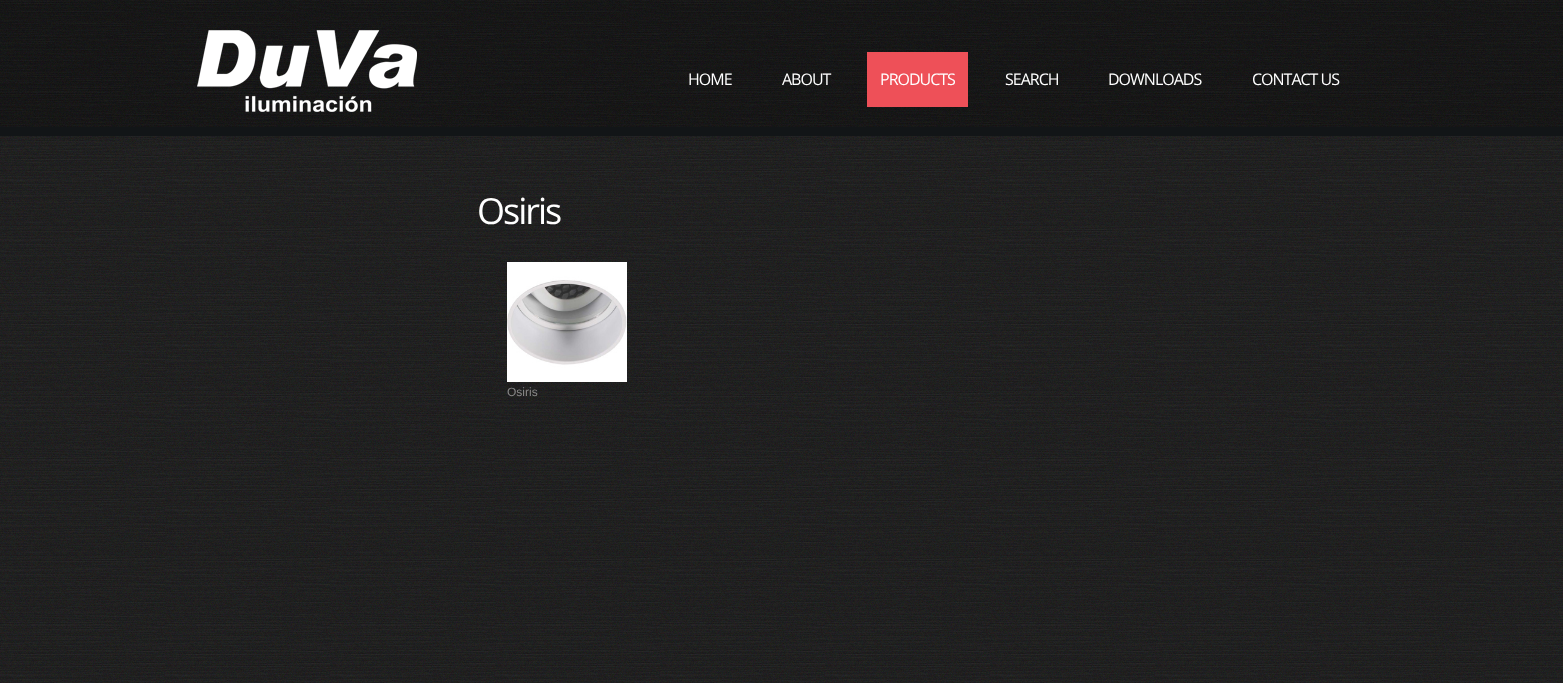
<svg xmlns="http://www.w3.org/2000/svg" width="1563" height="683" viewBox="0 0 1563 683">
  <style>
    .t1 { font: 16px Open Sans; letter-spacing: -1px; fill: #fff; }
    .t2 { font: 36px Open Sans; letter-spacing: -2px; fill: #fff; }
    .t3 { font: 12px Liberation Sans; fill: #898888; }
  </style>
  <rect width="100%" height="100%" fill="#fff"/>
  <image x="0" y="0" width="1563" height="127" href="images/1.png"/>
  <image x="197" y="30" width="220" height="82" href="images/2.png"/>
  <text x="688" y="85" class="t1">HOME</text>
  <text x="782" y="85" class="t1">ABOUT</text>
  <rect x="867" y="52" width="101" height="55" fill="#ee5058"/>
  <text x="880" y="85" class="t1">PRODUCTS</text>
  <text x="1005" y="85" class="t1">SEARCH</text>
  <text x="1108" y="85" class="t1">DOWNLOADS</text>
  <text x="1252" y="85" class="t1">CONTACT US</text>
  <image x="0" y="136" width="1563" height="547" href="images/3.png"/>
  <rect x="0" y="127" width="1563" height="9" fill="#121517"/>
  <text x="477" y="224" class="t2">Osiris</text>
  <image x="507" y="262" width="120" height="120" href="images/4.png"/>
  <text x="507" y="396" class="t3">Osiris</text>
</svg>
